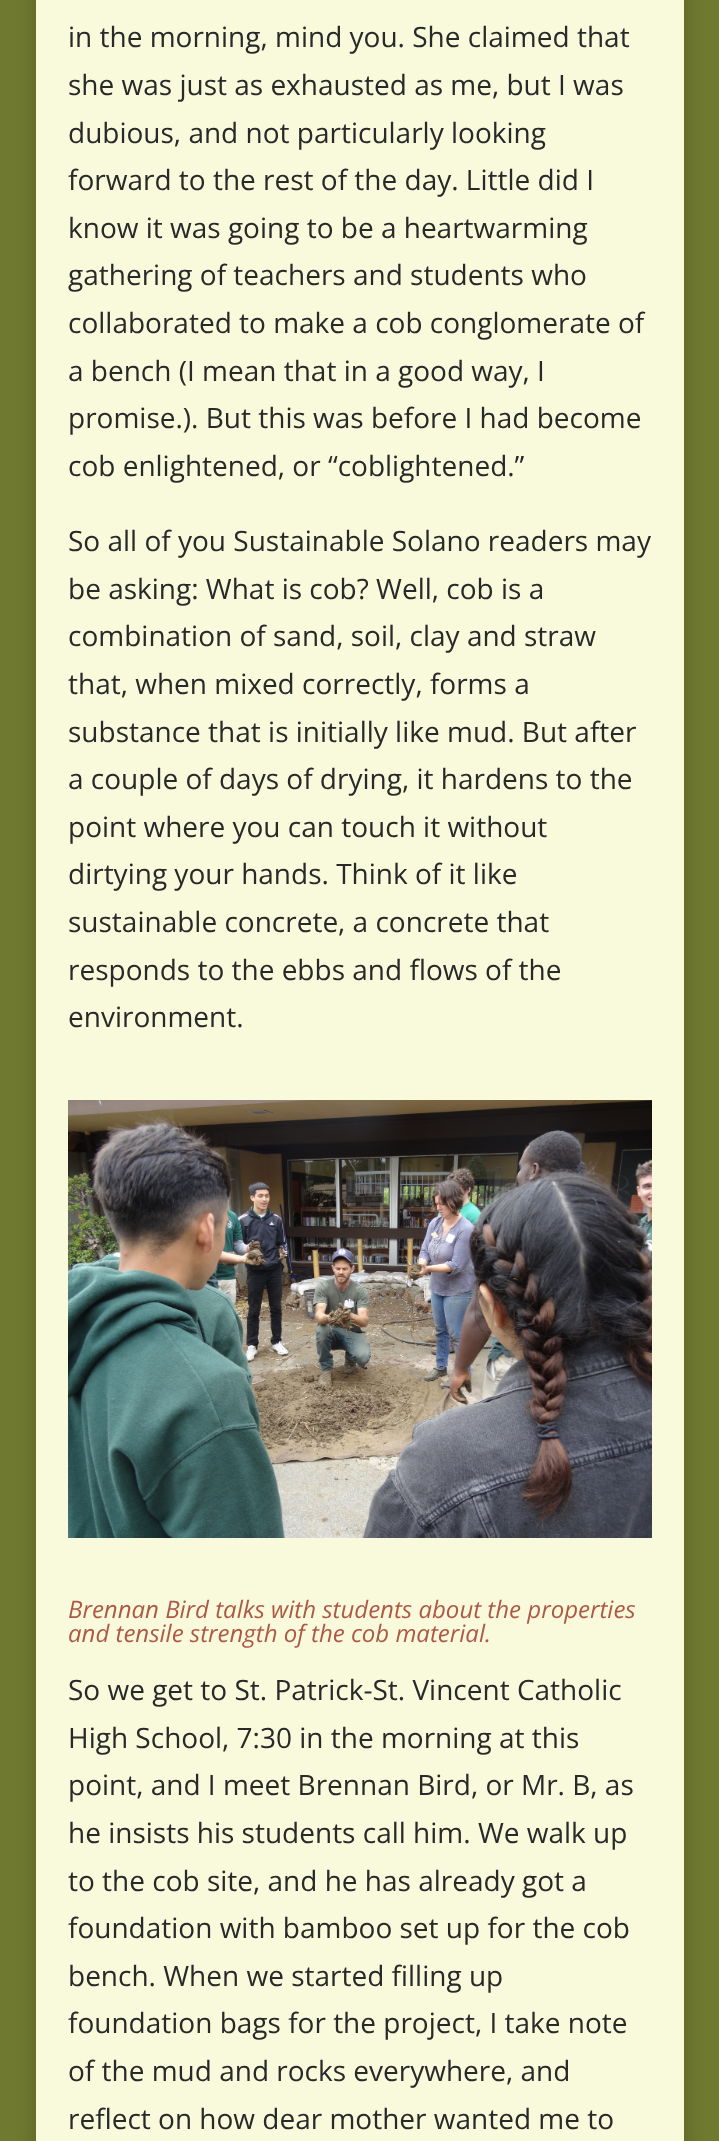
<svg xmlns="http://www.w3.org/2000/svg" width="719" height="2141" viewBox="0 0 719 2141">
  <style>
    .t1 { font: 28px Open Sans; fill: #292929; }
    .t2 { font: italic 24px Open Sans; fill: #ae5947; }
  </style>
  <rect width="100%" height="100%" fill="#6f7930"/>
  <rect x="36" y="-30" width="648" height="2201" fill="#00000033" filter="blur(10px)"/>
  <rect x="36" y="0" width="648" height="2141" fill="#f8fadb"/>
  <text x="68" y="47" class="t1">in the morning, mind you. She claimed that</text>
  <text x="68" y="95" class="t1">she was just as exhausted as me, but I was</text>
  <text x="68" y="143" class="t1">dubious, and not particularly looking</text>
  <text x="68" y="190" class="t1">forward to the rest of the day. Little did I</text>
  <text x="68" y="238" class="t1">know it was going to be a heartwarming</text>
  <text x="68" y="285" class="t1">gathering of teachers and students who</text>
  <text x="68" y="333" class="t1">collaborated to make a cob conglomerate of</text>
  <text x="68" y="381" class="t1">a bench (I mean that in a good way, I</text>
  <text x="68" y="428" class="t1">promise.). But this was before I had become</text>
  <text x="68" y="476" class="t1">cob enlightened, or “coblightened.”</text>
  <text x="68" y="551" class="t1">So all of you Sustainable Solano readers may</text>
  <text x="68" y="599" class="t1">be asking: What is cob? Well, cob is a</text>
  <text x="68" y="646" class="t1">combination of sand, soil, clay and straw</text>
  <text x="68" y="694" class="t1">that, when mixed correctly, forms a</text>
  <text x="68" y="742" class="t1">substance that is initially like mud. But after</text>
  <text x="68" y="789" class="t1">a couple of days of drying, it hardens to the</text>
  <text x="68" y="837" class="t1">point where you can touch it without</text>
  <text x="68" y="884" class="t1">dirtying your hands. Think of it like</text>
  <text x="68" y="932" class="t1">sustainable concrete, a concrete that</text>
  <text x="68" y="980" class="t1">responds to the ebbs and flows of the</text>
  <text x="68" y="1027" class="t1">environment.</text>
  <image x="68" y="1100" width="584" height="438" href="images/1.png"/>
  <text x="68" y="1618" class="t2">Brennan Bird talks with students about the properties</text>
  <text x="68" y="1642" class="t2">and tensile strength of the cob material.</text>
  <text x="68" y="1700" class="t1">So we get to St. Patrick-St. Vincent Catholic</text>
  <text x="68" y="1748" class="t1">High School, 7:30 in the morning at this</text>
  <text x="68" y="1795" class="t1">point, and I meet Brennan Bird, or Mr. B, as</text>
  <text x="68" y="1843" class="t1">he insists his students call him. We walk up</text>
  <text x="68" y="1891" class="t1">to the cob site, and he has already got a</text>
  <text x="68" y="1938" class="t1">foundation with bamboo set up for the cob</text>
  <text x="68" y="1986" class="t1">bench. When we started filling up</text>
  <text x="68" y="2033" class="t1">foundation bags for the project, I take note</text>
  <text x="68" y="2081" class="t1">of the mud and rocks everywhere, and</text>
  <text x="68" y="2129" class="t1">reflect on how dear mother wanted me to</text>
</svg>
